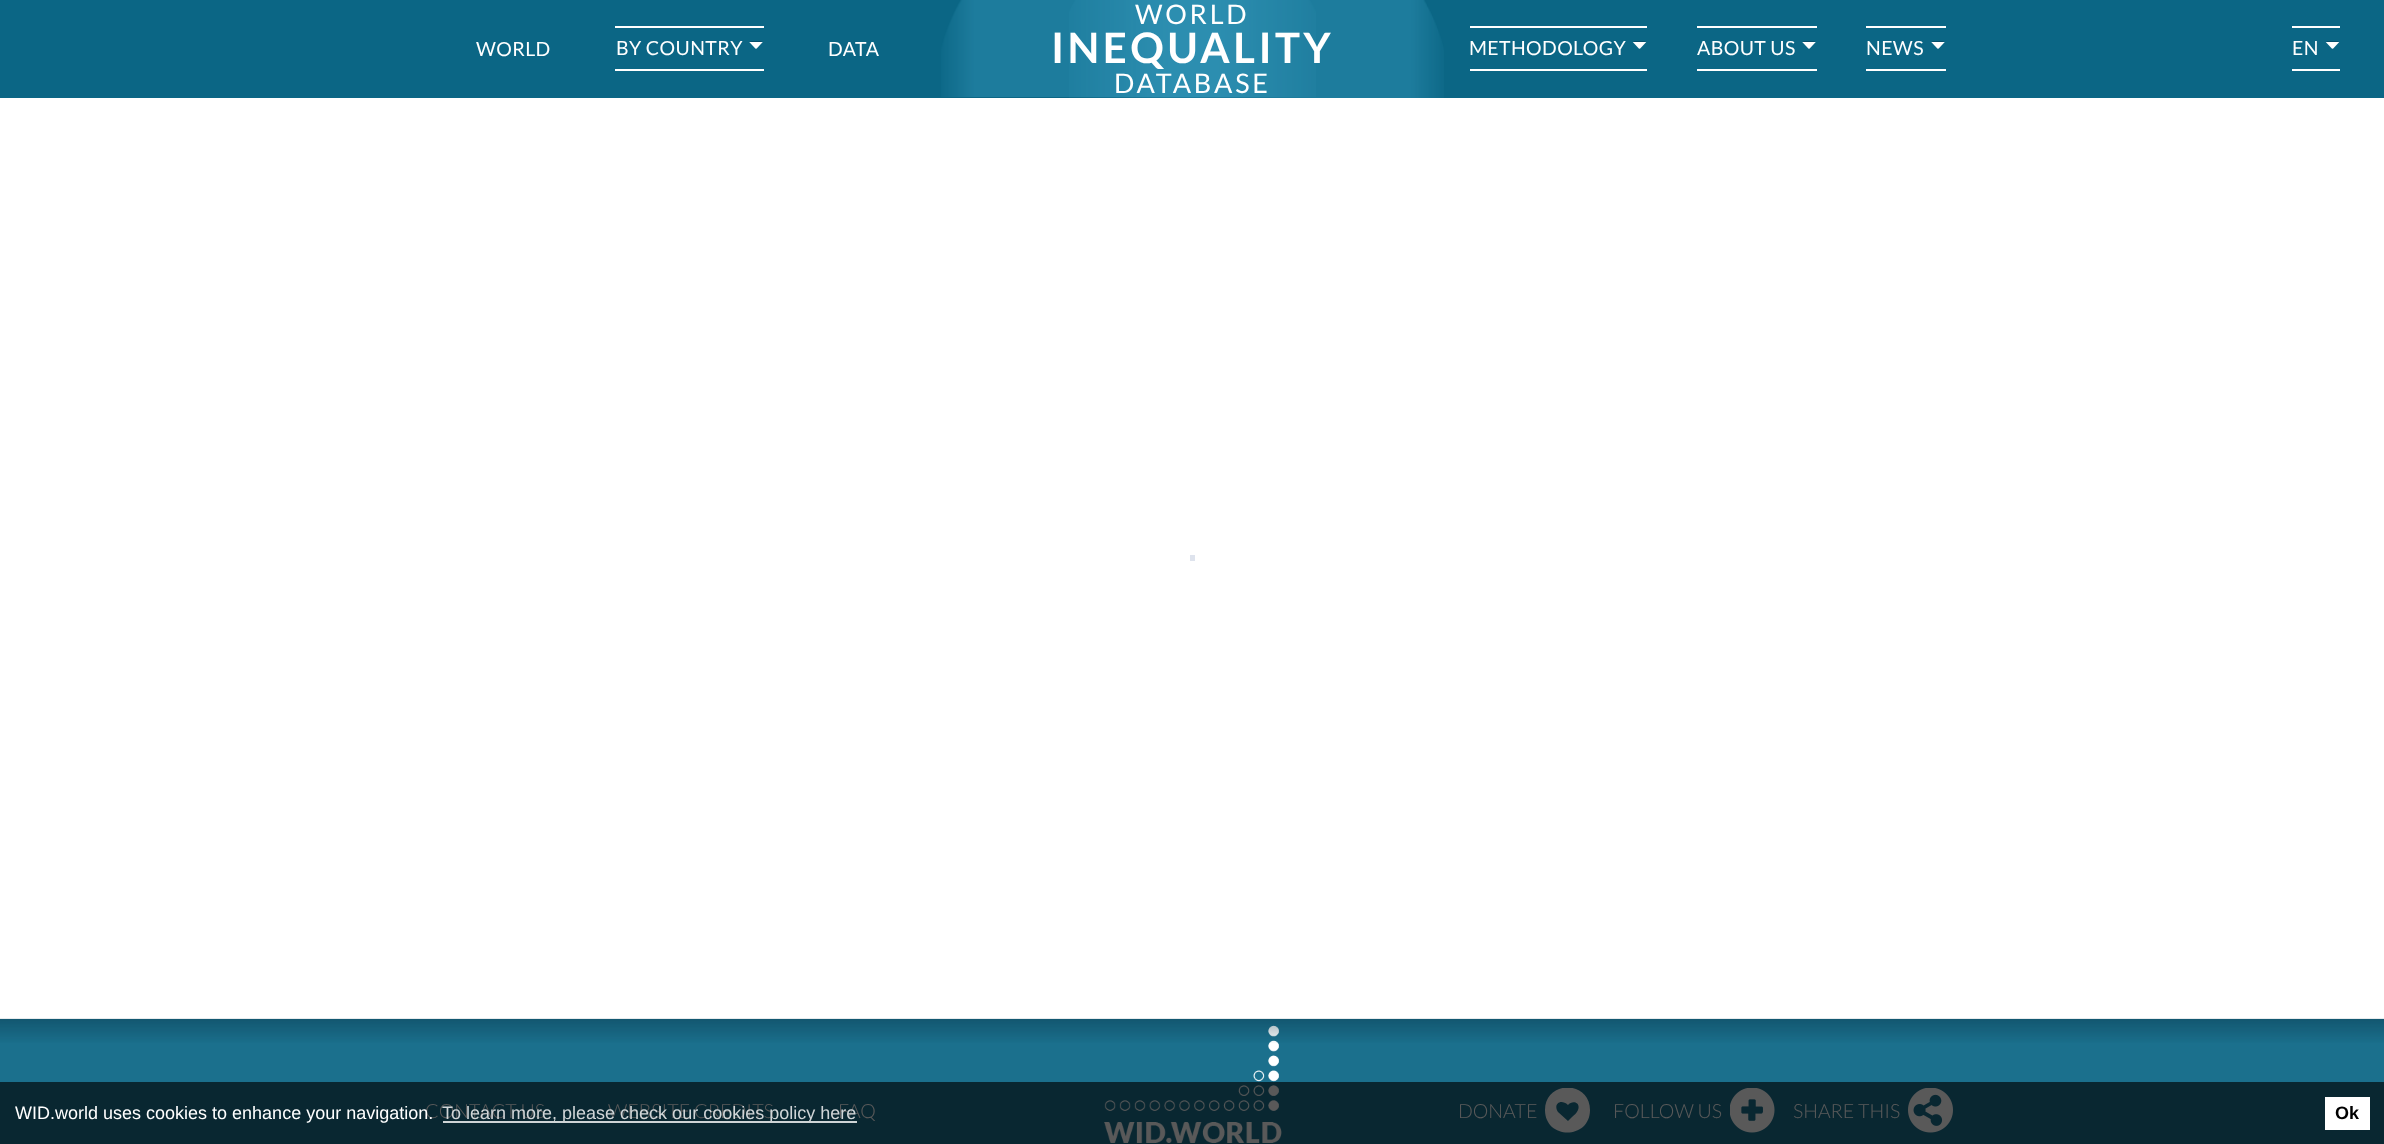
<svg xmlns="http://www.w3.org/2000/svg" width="2384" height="1144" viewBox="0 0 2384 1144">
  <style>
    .t1 { font: 19.5px Lato; letter-spacing: 0.4px; fill: #fff; }
    .t2 { font: 27px Lato; letter-spacing: 2.75px; fill: #fff; }
    .t3 { font: bold 42px Lato; letter-spacing: 3.4px; fill: #fff; }
    .t4 { font: 300 19.5px Lato; fill: #fff; }
    .t5 { font: 18px Liberation Sans; fill: #fff; }
    .t6 { font: 18px Liberation Sans; fill: #d0d5d7; }
    .t7 { font: bold 18px Liberation Sans; fill: #000; }
  </style>
  <defs>
    <clipPath id="clip1"><rect x="1545" y="1088" width="45" height="45"/></clipPath>
  </defs>
  <rect width="100%" height="100%" fill="#fff"/>
  <rect x="0" y="0" width="2384" height="98" fill="#0b6685"/>
  <text x="476" y="56" class="t1">WORLD</text>
  <rect x="615" y="26" width="149" height="2" fill="#fff"/>
  <rect x="615" y="69" width="149" height="2" fill="#fff"/>
  <text x="616" y="55" class="t1">BY COUNTRY</text>
  <image x="749" y="41" width="14" height="8" href="images/1.png"/>
  <text x="828" y="56" class="t1">DATA</text>
  <image x="941" y="0" width="375" height="97" href="images/2.png"/>
  <image x="1069" y="0" width="375" height="98" href="images/3.png"/>
  <text x="1135" y="24" class="t2">WORLD</text>
  <text x="1051" y="63" class="t3">INEQUALITY</text>
  <text x="1114" y="93" class="t2">DATABASE</text>
  <rect x="1470" y="26" width="177" height="2" fill="#fff"/>
  <rect x="1470" y="69" width="177" height="2" fill="#fff"/>
  <text x="1469" y="55" class="t1">METHODOLOGY</text>
  <image x="1632" y="41" width="15" height="8" href="images/4.png"/>
  <rect x="1697" y="26" width="120" height="2" fill="#fff"/>
  <rect x="1697" y="69" width="120" height="2" fill="#fff"/>
  <text x="1697" y="55" class="t1">ABOUT US</text>
  <image x="1802" y="41" width="14" height="8" href="images/1.png"/>
  <rect x="1866" y="26" width="80" height="2" fill="#fff"/>
  <rect x="1866" y="69" width="80" height="2" fill="#fff"/>
  <text x="1866" y="55" class="t1">NEWS</text>
  <image x="1931" y="41" width="14" height="8" href="images/1.png"/>
  <rect x="2292" y="26" width="48" height="2" fill="#fff"/>
  <rect x="2292" y="69" width="48" height="2" fill="#fff"/>
  <text x="2292" y="55" class="t1">EN</text>
  <image x="2325" y="41" width="15" height="8" href="images/4.png"/>
  <rect x="1190" y="555" width="5" height="6" fill="#dee3ed"/>
  <rect x="0" y="1019" width="2384" height="125" fill="#1b708d"/>
  <image x="1104" y="1025" width="178" height="118" href="images/6.png"/>
  <image x="0" y="1018" width="2384" height="25" href="images/5.png"/>
  <text x="425" y="1118" class="t4">CONTACT US</text>
  <text x="608" y="1118" class="t4">WEBSITE CREDITS</text>
  <text x="838" y="1118" class="t4">FAQ</text>
  <text x="1458" y="1118" class="t4">DONATE</text>
  <g clip-path="url(#clip1)">
    <path d="M1590 1110C1590 1140 1545 1140 1545 1110C1545 1080 1590 1080 1590 1110ZM1568 1121L1572 1117C1574 1115 1577 1113 1578 1110C1581 1102 1572 1100 1568 1105C1560 1098 1553 1105 1558 1112Z" fill="#fff"/>
  </g>
  <text x="1613" y="1118" class="t4">FOLLOW US</text>
  <image x="1730" y="1088" width="45" height="45" href="images/7.png"/>
  <text x="1793" y="1118" class="t4">SHARE THIS</text>
  <image x="1908" y="1088" width="45" height="45" href="images/8.png"/>
  <rect x="0" y="1082" width="2384" height="62" fill="#000000a6"/>
  <text x="15" y="1119" class="t5">WID.world uses cookies to enhance your navigation.</text>
  <rect x="443" y="1121" width="414" height="2" fill="#ced4d6"/>
  <text x="442" y="1119" class="t6">To learn more, please check our cookies policy here</text>
  <rect x="2325" y="1097" width="45" height="33" fill="#fff"/>
  <text x="2335" y="1119" class="t7">Ok</text>
</svg>
